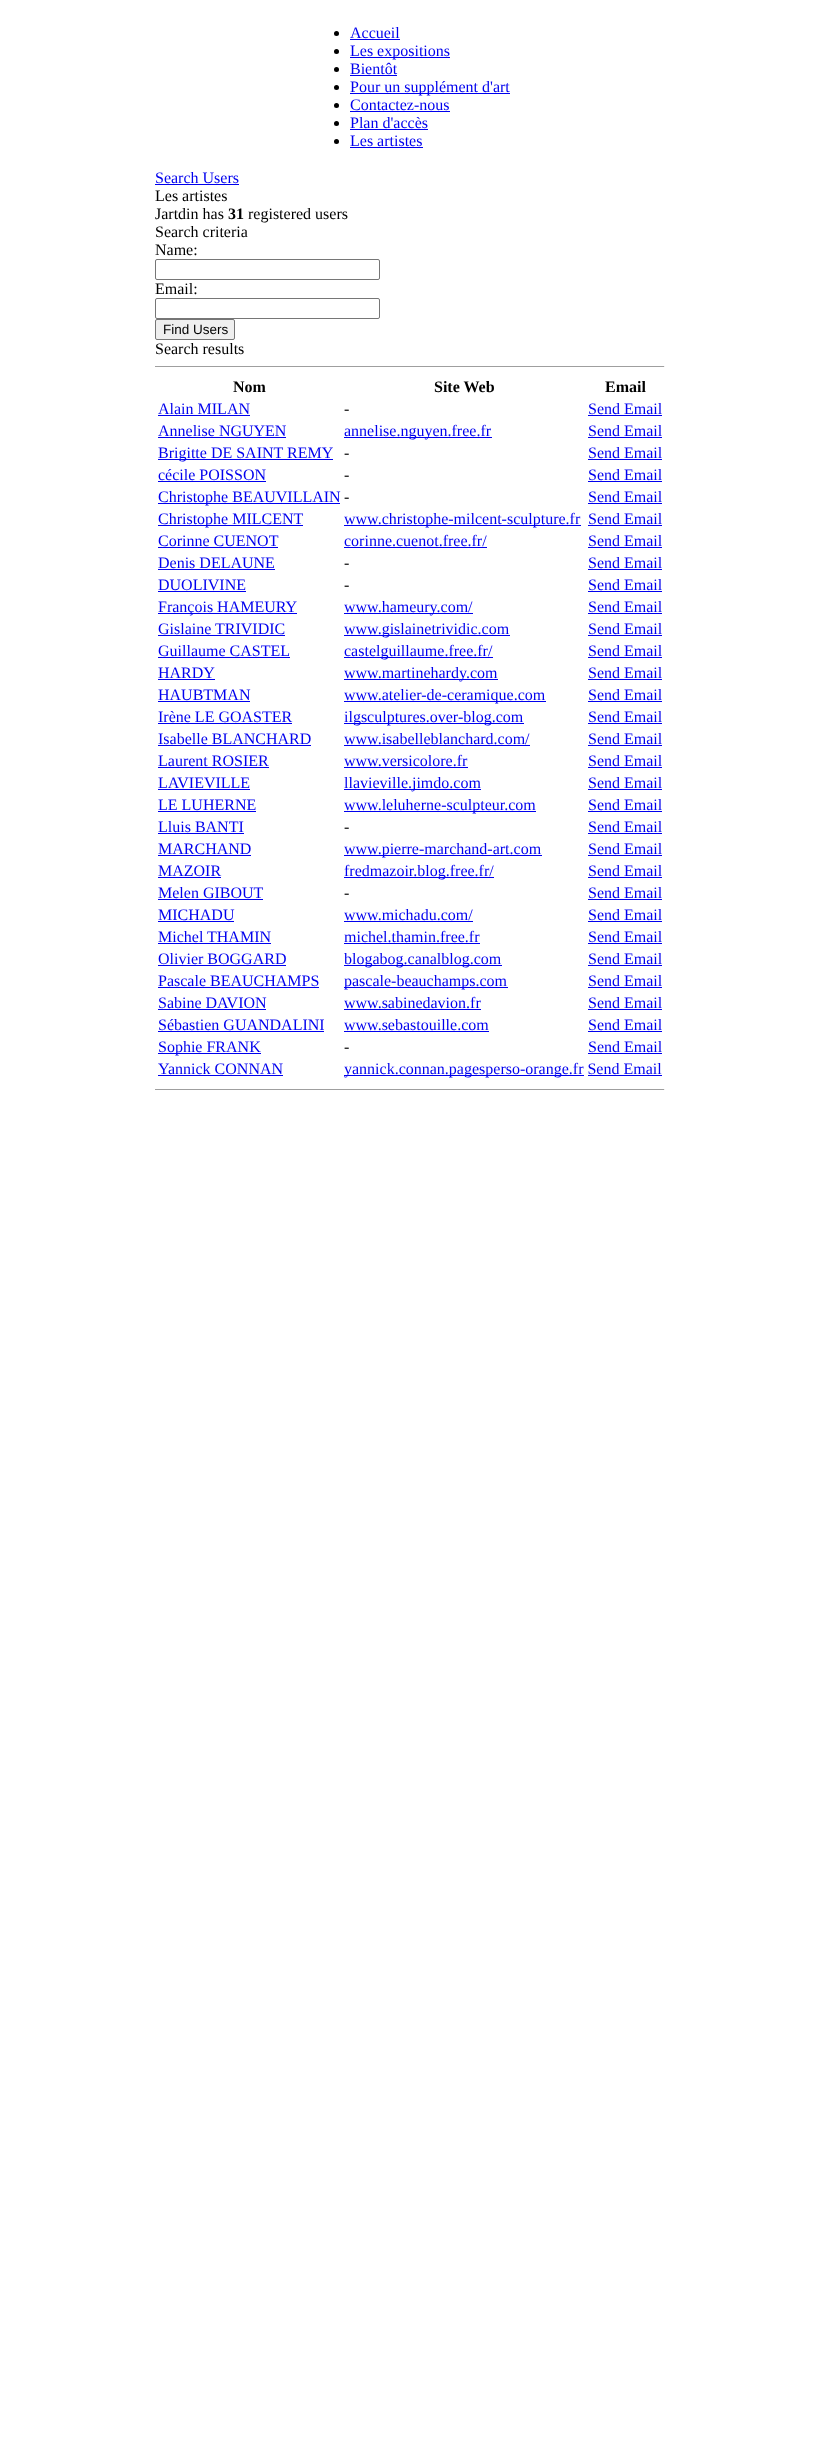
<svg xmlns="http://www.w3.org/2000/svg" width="820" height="2457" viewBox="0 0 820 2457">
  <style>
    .t1 { font: 16px Liberation Serif; fill: #00e; }
    .t2 { font: 16px Liberation Serif; fill: #000; }
    .t3 { font: bold 16px Liberation Serif; fill: #000; }
    .t4 { font: 13.5px Liberation Sans; fill: #000; }
  </style>
  <rect width="100%" height="100%" fill="#fff"/>
  <circle cx="336.5" cy="33.5" r="2.5" fill="#000"/>
  <text x="350" y="38" class="t1">Accueil</text>
  <rect x="350" y="39" width="50" height="1" fill="#00e"/>
  <circle cx="336.5" cy="51.5" r="2.5" fill="#000"/>
  <rect x="350" y="57" width="100" height="1" fill="#00e"/>
  <text x="350" y="56" class="t1">Les expositions</text>
  <circle cx="336.5" cy="69.5" r="2.5" fill="#000"/>
  <text x="350" y="74" class="t1">Bientôt</text>
  <rect x="350" y="75" width="47" height="1" fill="#00e"/>
  <circle cx="336.5" cy="87.5" r="2.5" fill="#000"/>
  <rect x="350" y="93" width="160" height="1" fill="#00e"/>
  <text x="350" y="92" class="t1">Pour un supplément d'art</text>
  <circle cx="336.5" cy="105.5" r="2.5" fill="#000"/>
  <text x="350" y="110" class="t1">Contactez-nous</text>
  <rect x="350" y="111" width="100" height="1" fill="#00e"/>
  <circle cx="336.5" cy="123.5" r="2.5" fill="#000"/>
  <text x="350" y="128" class="t1">Plan d'accès</text>
  <rect x="350" y="129" width="78" height="1" fill="#00e"/>
  <circle cx="336.5" cy="141.5" r="2.5" fill="#000"/>
  <text x="350" y="146" class="t1">Les artistes</text>
  <rect x="350" y="147" width="73" height="1" fill="#00e"/>
  <text x="155" y="183" class="t1">Search Users</text>
  <rect x="155" y="184" width="84" height="1" fill="#00e"/>
  <text x="155" y="201" class="t2">Les artistes</text>
  <text x="155" y="219" class="t2">Jartdin has</text>
  <text x="228" y="219" class="t3">31</text>
  <text x="248" y="219" class="t2">registered users</text>
  <text x="155" y="237" class="t2">Search criteria</text>
  <text x="155" y="255" class="t2">Name:</text>
  <rect x="155.5" y="259.5" width="224" height="20" rx="1.5" fill="none" stroke="#767676"/>
  <text x="155" y="294" class="t2">Email:</text>
  <rect x="155.5" y="298.5" width="224" height="20" rx="1.5" fill="none" stroke="#767676"/>
  <rect x="155.5" y="319.5" width="79" height="20" rx="1.5" fill="#efefef" stroke="#767676"/>
  <text x="163" y="334" class="t4">Find Users</text>
  <text x="155" y="354" class="t2">Search results</text>
  <rect x="155" y="366" width="510" height="1" fill="#9f9f9f"/>
  <rect x="664" y="366" width="1" height="1" fill="#eee"/>
  <text x="233" y="392" class="t3">Nom</text>
  <text x="434" y="392" class="t3">Site Web</text>
  <text x="605" y="392" class="t3">Email</text>
  <text x="158" y="414" class="t1">Alain MILAN</text>
  <rect x="158" y="415" width="92" height="1" fill="#00e"/>
  <text x="344" y="414" class="t2">-</text>
  <text x="588" y="414" class="t1">Send Email</text>
  <rect x="588" y="415" width="74" height="1" fill="#00e"/>
  <text x="158" y="436" class="t1">Annelise NGUYEN</text>
  <rect x="158" y="437" width="128" height="1" fill="#00e"/>
  <rect x="344" y="437" width="148" height="1" fill="#00e"/>
  <text x="344" y="436" class="t1">annelise.nguyen.free.fr</text>
  <text x="588" y="436" class="t1">Send Email</text>
  <rect x="588" y="437" width="74" height="1" fill="#00e"/>
  <rect x="158" y="459" width="175" height="1" fill="#00e"/>
  <text x="158" y="458" class="t1">Brigitte DE SAINT REMY</text>
  <text x="344" y="458" class="t2">-</text>
  <text x="588" y="458" class="t1">Send Email</text>
  <rect x="588" y="459" width="74" height="1" fill="#00e"/>
  <text x="158" y="480" class="t1">cécile POISSON</text>
  <rect x="158" y="481" width="108" height="1" fill="#00e"/>
  <text x="344" y="480" class="t2">-</text>
  <text x="588" y="480" class="t1">Send Email</text>
  <rect x="588" y="481" width="74" height="1" fill="#00e"/>
  <rect x="158" y="503" width="182" height="1" fill="#00e"/>
  <text x="158" y="502" class="t1">Christophe BEAUVILLAIN</text>
  <text x="344" y="502" class="t2">-</text>
  <text x="588" y="502" class="t1">Send Email</text>
  <rect x="588" y="503" width="74" height="1" fill="#00e"/>
  <rect x="158" y="525" width="145" height="1" fill="#00e"/>
  <text x="158" y="524" class="t1">Christophe MILCENT</text>
  <rect x="344" y="525" width="237" height="1" fill="#00e"/>
  <text x="344" y="524" class="t1">www.christophe-milcent-sculpture.fr</text>
  <text x="588" y="524" class="t1">Send Email</text>
  <rect x="588" y="525" width="74" height="1" fill="#00e"/>
  <text x="158" y="546" class="t1">Corinne CUENOT</text>
  <rect x="158" y="547" width="120" height="1" fill="#00e"/>
  <text x="344" y="546" class="t1">corinne.cuenot.free.fr/</text>
  <rect x="344" y="547" width="143" height="1" fill="#00e"/>
  <text x="588" y="546" class="t1">Send Email</text>
  <rect x="588" y="547" width="74" height="1" fill="#00e"/>
  <text x="158" y="568" class="t1">Denis DELAUNE</text>
  <rect x="158" y="569" width="117" height="1" fill="#00e"/>
  <text x="344" y="568" class="t2">-</text>
  <text x="588" y="568" class="t1">Send Email</text>
  <rect x="588" y="569" width="74" height="1" fill="#00e"/>
  <text x="158" y="590" class="t1">DUOLIVINE</text>
  <rect x="158" y="591" width="88" height="1" fill="#00e"/>
  <text x="344" y="590" class="t2">-</text>
  <text x="588" y="590" class="t1">Send Email</text>
  <rect x="588" y="591" width="74" height="1" fill="#00e"/>
  <rect x="158" y="613" width="139" height="1" fill="#00e"/>
  <text x="158" y="612" class="t1">François HAMEURY</text>
  <rect x="344" y="613" width="129" height="1" fill="#00e"/>
  <text x="344" y="612" class="t1">www.hameury.com/</text>
  <text x="588" y="612" class="t1">Send Email</text>
  <rect x="588" y="613" width="74" height="1" fill="#00e"/>
  <text x="158" y="634" class="t1">Gislaine TRIVIDIC</text>
  <rect x="158" y="635" width="127" height="1" fill="#00e"/>
  <rect x="344" y="635" width="166" height="1" fill="#00e"/>
  <text x="344" y="634" class="t1">www.gislainetrividic.com</text>
  <text x="588" y="634" class="t1">Send Email</text>
  <rect x="588" y="635" width="74" height="1" fill="#00e"/>
  <text x="158" y="656" class="t1">Guillaume CASTEL</text>
  <rect x="158" y="657" width="132" height="1" fill="#00e"/>
  <rect x="344" y="657" width="149" height="1" fill="#00e"/>
  <text x="344" y="656" class="t1">castelguillaume.free.fr/</text>
  <text x="588" y="656" class="t1">Send Email</text>
  <rect x="588" y="657" width="74" height="1" fill="#00e"/>
  <text x="158" y="678" class="t1">HARDY</text>
  <rect x="158" y="679" width="57" height="1" fill="#00e"/>
  <rect x="344" y="679" width="154" height="1" fill="#00e"/>
  <text x="344" y="678" class="t1">www.martinehardy.com</text>
  <text x="588" y="678" class="t1">Send Email</text>
  <rect x="588" y="679" width="74" height="1" fill="#00e"/>
  <text x="158" y="700" class="t1">HAUBTMAN</text>
  <rect x="158" y="701" width="92" height="1" fill="#00e"/>
  <rect x="344" y="701" width="202" height="1" fill="#00e"/>
  <text x="344" y="700" class="t1">www.atelier-de-ceramique.com</text>
  <text x="588" y="700" class="t1">Send Email</text>
  <rect x="588" y="701" width="74" height="1" fill="#00e"/>
  <text x="158" y="722" class="t1">Irène LE GOASTER</text>
  <rect x="158" y="723" width="134" height="1" fill="#00e"/>
  <rect x="344" y="723" width="180" height="1" fill="#00e"/>
  <text x="344" y="722" class="t1">ilgsculptures.over-blog.com</text>
  <text x="588" y="722" class="t1">Send Email</text>
  <rect x="588" y="723" width="74" height="1" fill="#00e"/>
  <text x="158" y="744" class="t1">Isabelle BLANCHARD</text>
  <rect x="158" y="745" width="153" height="1" fill="#00e"/>
  <text x="344" y="744" class="t1">www.isabelleblanchard.com/</text>
  <rect x="344" y="745" width="186" height="1" fill="#00e"/>
  <text x="588" y="744" class="t1">Send Email</text>
  <rect x="588" y="745" width="74" height="1" fill="#00e"/>
  <text x="158" y="766" class="t1">Laurent ROSIER</text>
  <rect x="158" y="767" width="111" height="1" fill="#00e"/>
  <text x="344" y="766" class="t1">www.versicolore.fr</text>
  <rect x="344" y="767" width="124" height="1" fill="#00e"/>
  <text x="588" y="766" class="t1">Send Email</text>
  <rect x="588" y="767" width="74" height="1" fill="#00e"/>
  <text x="158" y="788" class="t1">LAVIEVILLE</text>
  <rect x="158" y="789" width="92" height="1" fill="#00e"/>
  <rect x="344" y="789" width="137" height="1" fill="#00e"/>
  <text x="344" y="788" class="t1">llavieville.jimdo.com</text>
  <text x="588" y="788" class="t1">Send Email</text>
  <rect x="588" y="789" width="74" height="1" fill="#00e"/>
  <text x="158" y="810" class="t1">LE LUHERNE</text>
  <rect x="158" y="811" width="98" height="1" fill="#00e"/>
  <rect x="344" y="811" width="192" height="1" fill="#00e"/>
  <text x="344" y="810" class="t1">www.leluherne-sculpteur.com</text>
  <text x="588" y="810" class="t1">Send Email</text>
  <rect x="588" y="811" width="74" height="1" fill="#00e"/>
  <text x="158" y="832" class="t1">Lluis BANTI</text>
  <rect x="158" y="833" width="86" height="1" fill="#00e"/>
  <text x="344" y="832" class="t2">-</text>
  <text x="588" y="832" class="t1">Send Email</text>
  <rect x="588" y="833" width="74" height="1" fill="#00e"/>
  <text x="158" y="854" class="t1">MARCHAND</text>
  <rect x="158" y="855" width="93" height="1" fill="#00e"/>
  <rect x="344" y="855" width="198" height="1" fill="#00e"/>
  <text x="344" y="854" class="t1">www.pierre-marchand-art.com</text>
  <text x="588" y="854" class="t1">Send Email</text>
  <rect x="588" y="855" width="74" height="1" fill="#00e"/>
  <text x="158" y="876" class="t1">MAZOIR</text>
  <rect x="158" y="877" width="63" height="1" fill="#00e"/>
  <rect x="344" y="877" width="150" height="1" fill="#00e"/>
  <text x="344" y="876" class="t1">fredmazoir.blog.free.fr/</text>
  <text x="588" y="876" class="t1">Send Email</text>
  <rect x="588" y="877" width="74" height="1" fill="#00e"/>
  <text x="158" y="898" class="t1">Melen GIBOUT</text>
  <rect x="158" y="899" width="105" height="1" fill="#00e"/>
  <text x="344" y="898" class="t2">-</text>
  <text x="588" y="898" class="t1">Send Email</text>
  <rect x="588" y="899" width="74" height="1" fill="#00e"/>
  <text x="158" y="920" class="t1">MICHADU</text>
  <rect x="158" y="921" width="76" height="1" fill="#00e"/>
  <text x="344" y="920" class="t1">www.michadu.com/</text>
  <rect x="344" y="921" width="129" height="1" fill="#00e"/>
  <text x="588" y="920" class="t1">Send Email</text>
  <rect x="588" y="921" width="74" height="1" fill="#00e"/>
  <text x="158" y="942" class="t1">Michel THAMIN</text>
  <rect x="158" y="943" width="113" height="1" fill="#00e"/>
  <text x="344" y="942" class="t1">michel.thamin.free.fr</text>
  <rect x="344" y="943" width="136" height="1" fill="#00e"/>
  <text x="588" y="942" class="t1">Send Email</text>
  <rect x="588" y="943" width="74" height="1" fill="#00e"/>
  <text x="158" y="964" class="t1">Olivier BOGGARD</text>
  <rect x="158" y="965" width="128" height="1" fill="#00e"/>
  <rect x="344" y="965" width="158" height="1" fill="#00e"/>
  <text x="344" y="964" class="t1">blogabog.canalblog.com</text>
  <text x="588" y="964" class="t1">Send Email</text>
  <rect x="588" y="965" width="74" height="1" fill="#00e"/>
  <text x="158" y="986" class="t1">Pascale BEAUCHAMPS</text>
  <rect x="158" y="987" width="161" height="1" fill="#00e"/>
  <rect x="344" y="987" width="164" height="1" fill="#00e"/>
  <text x="344" y="986" class="t1">pascale-beauchamps.com</text>
  <text x="588" y="986" class="t1">Send Email</text>
  <rect x="588" y="987" width="74" height="1" fill="#00e"/>
  <text x="158" y="1008" class="t1">Sabine DAVION</text>
  <rect x="158" y="1009" width="108" height="1" fill="#00e"/>
  <text x="344" y="1008" class="t1">www.sabinedavion.fr</text>
  <rect x="344" y="1009" width="137" height="1" fill="#00e"/>
  <text x="588" y="1008" class="t1">Send Email</text>
  <rect x="588" y="1009" width="74" height="1" fill="#00e"/>
  <text x="158" y="1030" class="t1">Sébastien GUANDALINI</text>
  <rect x="158" y="1031" width="166" height="1" fill="#00e"/>
  <text x="344" y="1030" class="t1">www.sebastouille.com</text>
  <rect x="344" y="1031" width="145" height="1" fill="#00e"/>
  <text x="588" y="1030" class="t1">Send Email</text>
  <rect x="588" y="1031" width="74" height="1" fill="#00e"/>
  <rect x="158" y="1053" width="103" height="1" fill="#00e"/>
  <text x="158" y="1052" class="t1">Sophie FRANK</text>
  <text x="344" y="1052" class="t2">-</text>
  <text x="588" y="1052" class="t1">Send Email</text>
  <rect x="588" y="1053" width="74" height="1" fill="#00e"/>
  <text x="158" y="1074" class="t1">Yannick CONNAN</text>
  <rect x="158" y="1075" width="125" height="1" fill="#00e"/>
  <rect x="344" y="1075" width="240" height="1" fill="#00e"/>
  <text x="344" y="1074" class="t1">yannick.connan.pagesperso-orange.fr Send Email</text>
  <rect x="588" y="1075" width="74" height="1" fill="#00e"/>
  <rect x="155" y="1089" width="510" height="1" fill="#9f9f9f"/>
  <rect x="664" y="1089" width="1" height="1" fill="#eee"/>
</svg>
